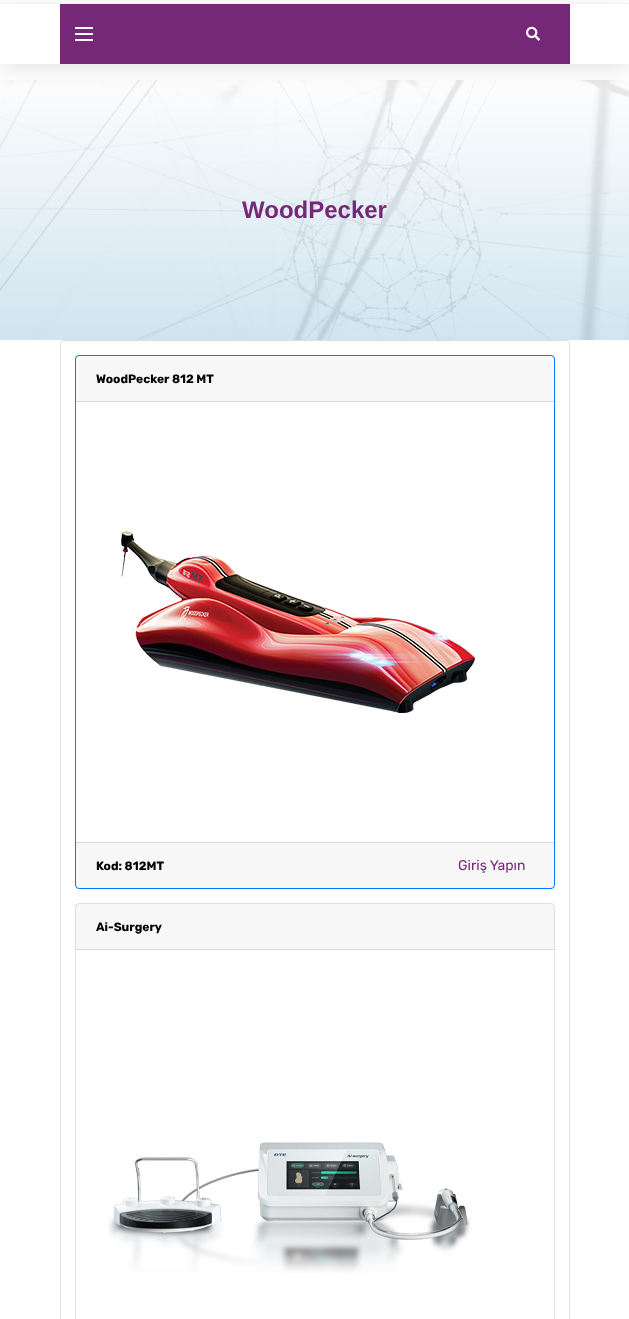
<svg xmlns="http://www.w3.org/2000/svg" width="629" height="1319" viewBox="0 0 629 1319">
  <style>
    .t1 { font: bold 24px Liberation Sans; fill: #752877; }
    .t2 { font: bold 12px Rubik; fill: #000; }
    .t3 { font: 14px Rubik; fill: #752877; }
  </style>
  <defs>
    <clipPath id="clip1"><path d="M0 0H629V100H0ZM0 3H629V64H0Z" clip-rule="evenodd"/></clipPath>
  </defs>
  <rect width="100%" height="100%" fill="#fff"/>
  <image x="0" y="80" width="629" height="260" href="images/2.png"/>
  <g clip-path="url(#clip1)">
    <rect x="0" y="8" width="629" height="61" fill="#0000001a" filter="blur(10px)"/>
  </g>
  <rect x="0" y="3" width="629" height="1" fill="#f2f2f2"/>
  <rect x="60" y="4" width="510" height="60" fill="#752877"/>
  <rect x="75" y="27" width="18" height="2" fill="#fff"/>
  <rect x="75" y="33" width="18" height="2" fill="#fff"/>
  <rect x="75" y="39" width="18" height="2" fill="#fff"/>
  <image x="526" y="26" width="14" height="15" href="images/1.png"/>
  <text x="242" y="218" class="t1">WoodPecker</text>
  <rect x="60.5" y="340.5" width="509" height="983" rx="3.5" fill="none" stroke="#dfdfdf"/>
  <rect x="75.5" y="355.5" width="479" height="533" rx="3.5" fill="none" stroke="#007bff"/>
  <rect x="76" y="356" width="478" height="45" fill="#00000008"/>
  <rect x="76" y="401" width="478" height="1" fill="#d8d8d8"/>
  <text x="96" y="383" class="t2">WoodPecker 812 MT</text>
  <image x="121" y="531" width="354" height="182" href="images/3.png"/>
  <rect x="76" y="843" width="478" height="45" fill="#00000008"/>
  <rect x="76" y="842" width="478" height="1" fill="#d8d8d8"/>
  <text x="96" y="870" class="t2">Kod: 812MT</text>
  <text x="458" y="870" class="t3">Giriş Yapın</text>
  <rect x="75.5" y="903.5" width="479" height="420" rx="3.5" fill="none" stroke="#dfdfdf"/>
  <rect x="76" y="904" width="478" height="45" fill="#00000008"/>
  <rect x="76" y="949" width="478" height="1" fill="#d8d8d8"/>
  <text x="96" y="931" class="t2">Ai-Surgery</text>
  <image x="108" y="1142" width="363" height="131" href="images/4.png"/>
</svg>
